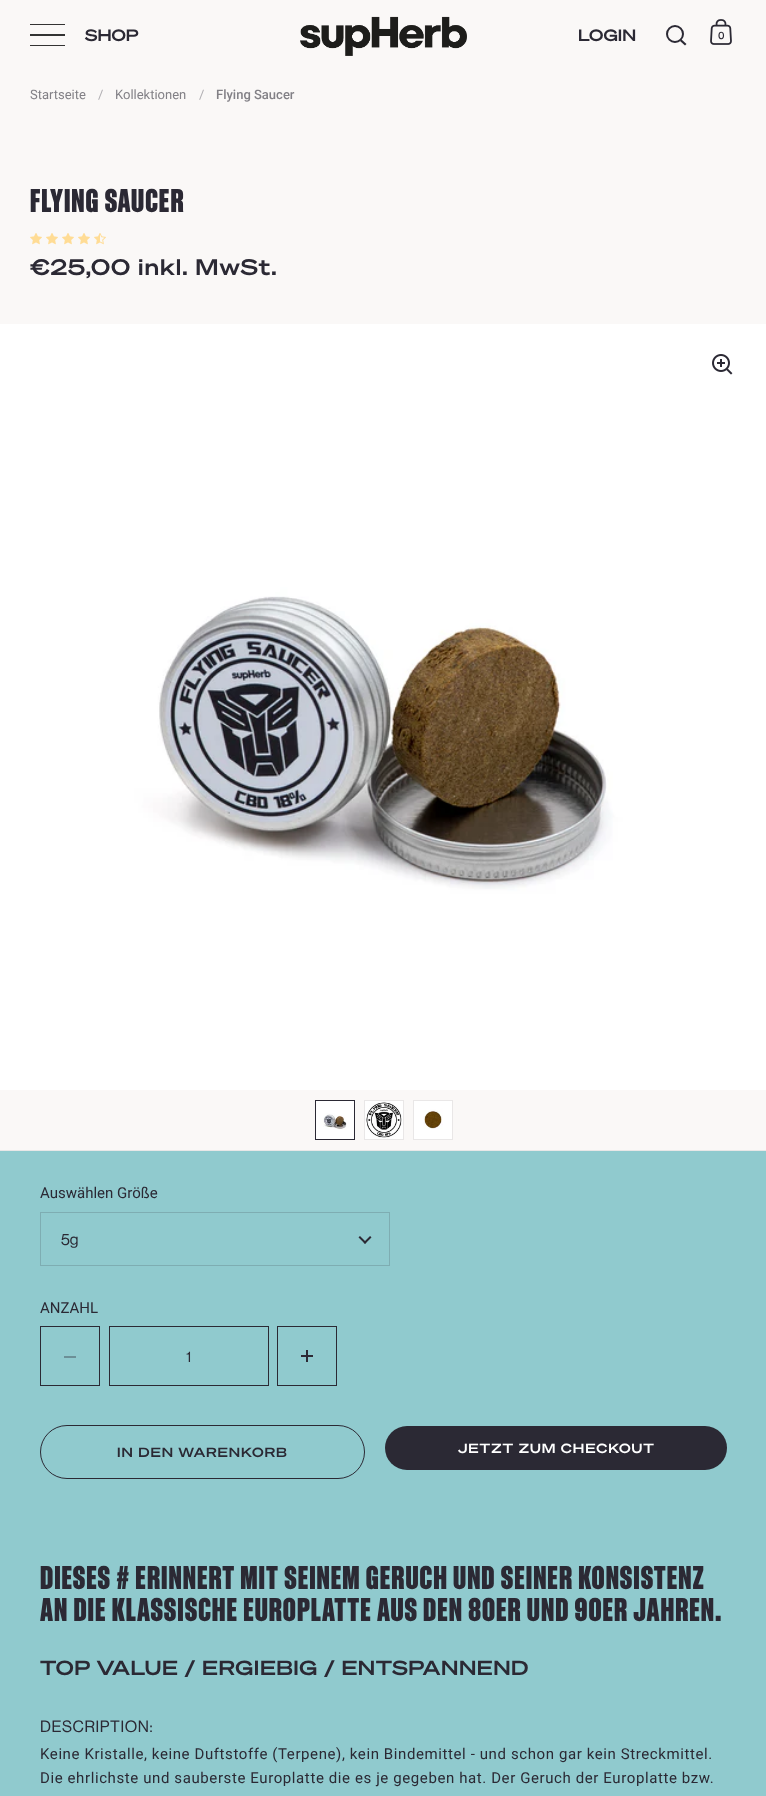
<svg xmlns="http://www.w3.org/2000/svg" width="766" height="1796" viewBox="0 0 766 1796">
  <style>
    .t1 { font: 600 16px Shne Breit; fill: #2b2934; }
    .t2 { font: bold 10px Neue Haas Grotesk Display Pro; fill: #2b2934; }
    .t3 { font: 13px Roboto; fill: #828086; }
    .t4 { font: 13px Roboto; fill: #afadb1; }
    .t5 { font: 500 13px Roboto; fill: #828086; }
    .t6 { font: 800 32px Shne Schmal; letter-spacing: 1px; fill: #2b2934; }
    .t7 { font: 600 22px Shne Breit; letter-spacing: 1px; fill: #2b2934; }
    .t8 { font: 15px Roboto; fill: #2b2934; }
    .t9 { font: 500 16px Neue Haas Grotesk Display Pro; fill: #2b2934; }
    .t10 { font: 500 15px Neue Haas Grotesk Display Pro; fill: #2b2934; }
    .t11 { font: 600 13px Shne Breit; letter-spacing: 1px; fill: #2b2934; }
    .t12 { font: 600 13px Shne Breit; letter-spacing: 1px; fill: #fff; }
    .t13 { font: 600 20px Shne Breit; letter-spacing: 0.6px; fill: #2b2934; }
    .t14 { font: 500 16px Neue Haas Grotesk Display Pro; letter-spacing: 0.6px; fill: #2b2934; }
    .t15 { font: 15px Roboto; letter-spacing: 0.6px; fill: #2b2934; }
  </style>
  <rect width="100%" height="100%" fill="#faf8f7"/>
  <rect x="30" y="24" width="35" height="1" fill="#333"/>
  <rect x="30" y="34" width="35" height="2" fill="#333"/>
  <rect x="30" y="45" width="35" height="1" fill="#333"/>
  <text x="85" y="41" class="t1">SHOP</text>
  <image x="300" y="16" width="167" height="40" href="images/1.png"/>
  <text x="578" y="41" class="t1">LOGIN</text>
  <circle cx="675" cy="34" r="8" fill="none" stroke="#2b2934" stroke-width="2"/>
  <path d="M680 41L681.5 39.5L686.5 44L685 45.5Z" fill="#2b2934"/>
  <image x="710" y="19" width="22" height="26" href="images/2.png"/>
  <text x="718" y="39" class="t2">0</text>
  <text x="30" y="99" class="t3">Startseite</text>
  <text x="98" y="99" class="t4">/</text>
  <text x="115" y="99" class="t3">Kollektionen</text>
  <text x="199" y="99" class="t4">/</text>
  <text x="216" y="99" class="t5">Flying Saucer</text>
  <text x="30" y="212" class="t6">FLYING SAUCER</text>
  <image x="30" y="233" width="12" height="12" href="images/3.png"/>
  <image x="46" y="233" width="12" height="12" href="images/3.png"/>
  <image x="62" y="233" width="12" height="12" href="images/3.png"/>
  <image x="78" y="233" width="12" height="12" href="images/3.png"/>
  <image x="94" y="233" width="12" height="12" href="images/4.png"/>
  <text x="30" y="275" class="t7">€25,00 inkl. MwSt.</text>
  <rect x="0" y="1150" width="766" height="1" fill="#e9e7e7"/>
  <image x="0" y="324" width="766" height="766" href="images/5.png"/>
  <image x="712" y="354" width="21" height="21" href="images/6.png"/>
  <rect x="315.5" y="1100.5" width="39" height="39" fill="none" stroke="#2b2934"/>
  <image x="316" y="1101" width="38" height="38" href="images/7.png"/>
  <rect x="364.5" y="1100.5" width="39" height="39" fill="none" stroke="#e9e7e7"/>
  <image x="365" y="1101" width="38" height="38" href="images/8.png"/>
  <rect x="413.5" y="1100.5" width="39" height="39" fill="none" stroke="#e9e7e7"/>
  <image x="414" y="1101" width="38" height="38" href="images/9.png"/>
  <rect x="0" y="1151" width="766" height="645" fill="#90cace"/>
  <text x="40" y="1198" class="t8">Auswählen Größe</text>
  <image x="358" y="1236" width="14" height="8" href="images/10.png"/>
  <rect x="40.5" y="1212.5" width="349" height="53" fill="none" stroke="#7eadb2"/>
  <text x="61" y="1245" class="t9">5g</text>
  <text x="40" y="1313" class="t8">ANZAHL</text>
  <rect x="40.5" y="1326.5" width="59" height="59" fill="none" stroke="#2b2934"/>
  <rect x="64" y="1356" width="12" height="2" fill="#6c9097"/>
  <rect x="109.5" y="1326.5" width="159" height="59" fill="none" stroke="#2b2934"/>
  <text x="186" y="1362" class="t10">1</text>
  <rect x="277.5" y="1326.5" width="59" height="59" fill="none" stroke="#2b2934"/>
  <rect x="306" y="1350" width="2" height="12" fill="#2b2934"/>
  <rect x="301" y="1355" width="12" height="2" fill="#2b2934"/>
  <rect x="40.5" y="1425.5" width="324" height="53" rx="26.5" fill="none" stroke="#2b2934"/>
  <text x="117" y="1457" class="t11">IN DEN WARENKORB</text>
  <rect x="385" y="1426" width="342" height="44" rx="22" fill="#2b2934"/>
  <text x="458" y="1453" class="t12">JETZT ZUM CHECKOUT</text>
  <text x="40" y="1589" class="t6">DIESES # ERINNERT MIT SEINEM GERUCH UND SEINER KONSISTENZ</text>
  <text x="40" y="1621" class="t6">AN DIE KLASSISCHE EUROPLATTE AUS DEN 80ER UND 90ER JAHREN.</text>
  <text x="40" y="1675" class="t13">TOP VALUE / ERGIEBIG / ENTSPANNEND</text>
  <text x="40" y="1732" class="t14">DESCRIPTION:</text>
  <text x="40" y="1759" class="t15">Keine Kristalle, keine Duftstoffe (Terpene), kein Bindemittel - und schon gar kein Streckmittel.</text>
  <text x="40" y="1783" class="t15">Die ehrlichste und sauberste Europlatte die es je gegeben hat. Der Geruch der Europlatte bzw.</text>
</svg>
